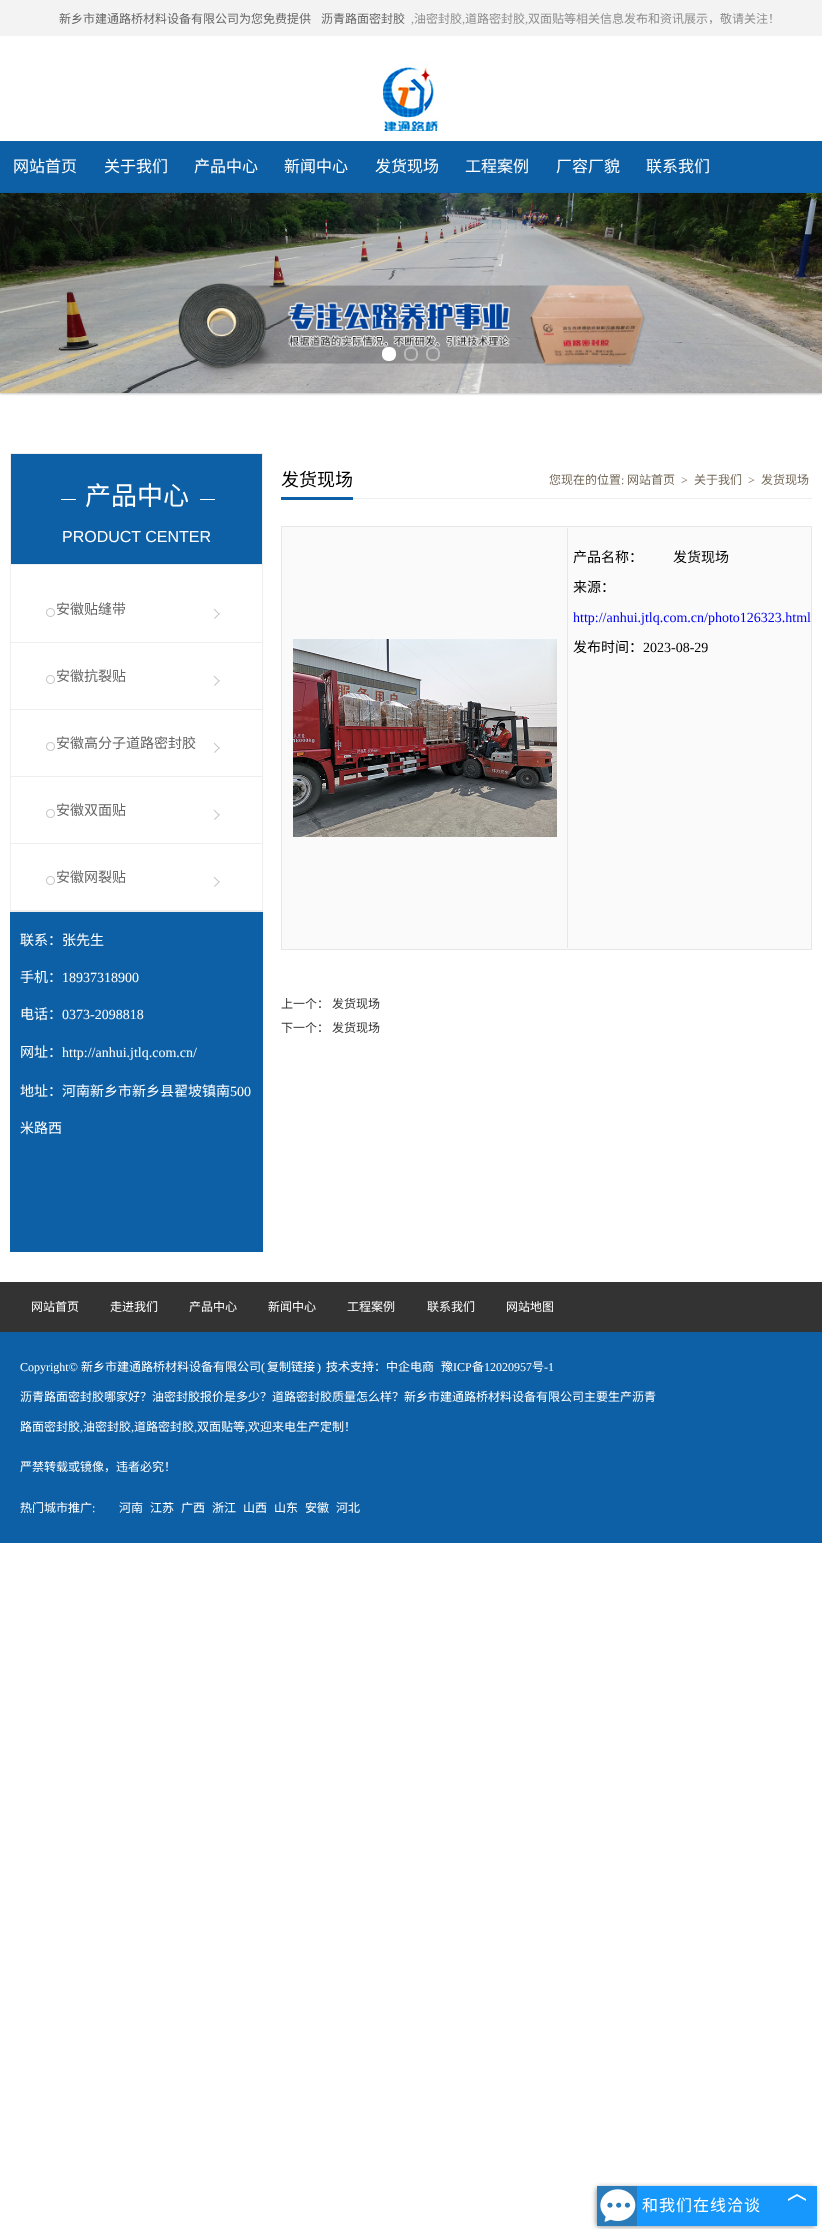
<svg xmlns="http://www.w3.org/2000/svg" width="822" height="2229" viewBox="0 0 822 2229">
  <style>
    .t1 { font: 12px Noto Sans CJK SC; fill: #666; }
    .t2 { font: 12px Liberation Serif; fill: #908f8f; }
    .t3 { font: 12px Noto Sans CJK SC; fill: #908f8f; }
    .t4 { font: 16px Noto Sans CJK SC; fill: #fff; }
    .t5 { font: 26px Noto Sans CJK SC; fill: #fff; }
    .t6 { font: 16px Liberation Sans; fill: #fff; }
    .t7 { font: 14px Noto Sans CJK SC; fill: #666; }
    .t8 { font: 14px Noto Sans CJK SC; fill: #fff; }
    .t9 { font: 14px Liberation Serif; fill: #fff; }
    .t10 { font: 18px Noto Sans CJK SC; fill: #000; }
    .t11 { font: 12px Noto Sans CJK SC; fill: #756a5a; }
    .t12 { font: 12px Liberation Serif; fill: #756a5a; }
    .t13 { font: 14px Noto Sans CJK SC; fill: #000; }
    .t14 { font: 14px Liberation Serif; fill: #00e; }
    .t15 { font: 14px Liberation Serif; fill: #000; }
    .t16 { font: 12px Noto Sans CJK SC; fill: #343434; }
    .t17 { font: 12px Noto Sans CJK SC; fill: #fff; }
    .t18 { font: 12px Liberation Serif; fill: #fff; }
    .t19 { font: 16px Noto Sans CJK SC; letter-spacing: 1px; fill: #fff; }
  </style>
  <rect width="100%" height="100%" fill="#fff"/>
  <rect x="0" y="0" width="822" height="36" fill="#f3f3f3"/>
  <text x="59" y="23" class="t1">新乡市建通路桥材料设备有限公司为您免费提供</text>
  <text x="321" y="23" class="t1">沥青路面密封胶</text>
  <text x="411" y="23" class="t2">,</text>
  <text x="414" y="23" class="t3">油密封胶</text>
  <text x="462" y="23" class="t2">,</text>
  <text x="465" y="23" class="t3">道路密封胶</text>
  <text x="525" y="23" class="t2">,</text>
  <text x="528" y="23" class="t3">双面贴等相关信息发布和资讯展示，敬请关注！</text>
  <image x="383" y="61" width="56" height="70" href="images/1.png"/>
  <rect x="0" y="141" width="822" height="52" fill="#0d60a6"/>
  <text x="13" y="172" class="t4">网站首页</text>
  <text x="104" y="172" class="t4">关于我们</text>
  <text x="194" y="172" class="t4">产品中心</text>
  <text x="284" y="172" class="t4">新闻中心</text>
  <text x="375" y="172" class="t4">发货现场</text>
  <text x="465" y="172" class="t4">工程案例</text>
  <text x="556" y="172" class="t4">厂容厂貌</text>
  <text x="646" y="172" class="t4">联系我们</text>
  <rect x="0" y="194" width="822" height="200" fill="#00000040" filter="blur(1px)"/>
  <image x="0" y="193" width="822" height="200" href="images/2.png"/>
  <rect x="383" y="348" width="12" height="12" rx="5" fill="#fff" stroke="#fff" stroke-width="2"/>
  <rect x="405" y="348" width="12" height="12" rx="5" fill="none" stroke="#ffffff66" stroke-width="2"/>
  <rect x="427" y="348" width="12" height="12" rx="5" fill="none" stroke="#ffffff66" stroke-width="2"/>
  <rect x="10.5" y="453.5" width="252" height="458" fill="none" stroke="#eee"/>
  <rect x="11" y="454" width="251" height="110" fill="#0d60a6"/>
  <image x="61" y="499" width="154" height="1" href="images/3.png"/>
  <rect x="11" y="564" width="251" height="1" fill="#eee"/>
  <text x="85" y="505" class="t5">产品中心</text>
  <text x="62" y="542" class="t6">PRODUCT CENTER</text>
  <image x="46" y="608" width="174" height="11" href="images/4.png"/>
  <rect x="11" y="642" width="251" height="1" fill="#eee"/>
  <text x="56" y="614" class="t7">安徽贴缝带</text>
  <image x="46" y="675" width="174" height="11" href="images/4.png"/>
  <rect x="11" y="709" width="251" height="1" fill="#eee"/>
  <text x="56" y="681" class="t7">安徽抗裂贴</text>
  <image x="46" y="742" width="174" height="11" href="images/4.png"/>
  <rect x="11" y="776" width="251" height="1" fill="#eee"/>
  <text x="56" y="748" class="t7">安徽高分子道路密封胶</text>
  <image x="46" y="809" width="174" height="11" href="images/4.png"/>
  <rect x="11" y="843" width="251" height="1" fill="#eee"/>
  <text x="56" y="815" class="t7">安徽双面贴</text>
  <image x="46" y="876" width="174" height="11" href="images/4.png"/>
  <rect x="11" y="910" width="251" height="1" fill="#eee"/>
  <text x="56" y="882" class="t7">安徽网裂贴</text>
  <rect x="10" y="912" width="253" height="340" fill="#0d60a6"/>
  <text x="20" y="945" class="t8">联系：张先生</text>
  <text x="20" y="982" class="t8">手机：</text>
  <text x="62" y="982" class="t9">18937318900</text>
  <text x="20" y="1019" class="t8">电话：</text>
  <text x="62" y="1019" class="t9">0373-2098818</text>
  <text x="20" y="1057" class="t8">网址：</text>
  <text x="62" y="1057" class="t9">http://anhui.jtlq.com.cn/</text>
  <text x="20" y="1096" class="t8">地址：河南新乡市新乡县翟坡镇南</text>
  <text x="230" y="1096" class="t9">500</text>
  <text x="20" y="1133" class="t8">米路西</text>
  <rect x="353" y="498" width="459" height="1" fill="#eee"/>
  <rect x="281" y="497" width="72" height="3" fill="#0d60a6"/>
  <text x="281" y="486" class="t10">发货现场</text>
  <text x="549" y="484" class="t11">您现在的位置</text>
  <text x="621" y="484" class="t12">:</text>
  <text x="627" y="484" class="t11">网站首页</text>
  <text x="681" y="484" class="t12">&gt;</text>
  <text x="694" y="484" class="t11">关于我们</text>
  <text x="748" y="484" class="t12">&gt;</text>
  <text x="761" y="484" class="t11">发货现场</text>
  <rect x="281.5" y="526.5" width="530" height="423" fill="#fafafa" stroke="#e7e7e7"/>
  <rect x="567" y="528" width="1" height="420" fill="#e7e7e7"/>
  <image x="293" y="639" width="264" height="198" href="images/5.png"/>
  <text x="573" y="562" class="t13">产品名称：</text>
  <text x="673" y="562" class="t13">发货现场</text>
  <text x="573" y="592" class="t13">来源：</text>
  <text x="573" y="622" class="t14">http://anhui.jtlq.com.cn/photo126323.html</text>
  <text x="573" y="652" class="t13">发布时间：</text>
  <text x="643" y="652" class="t15">2023-08-29</text>
  <text x="281" y="1008" class="t16">上一个：</text>
  <text x="332" y="1008" class="t16">发货现场</text>
  <text x="281" y="1032" class="t16">下一个：</text>
  <text x="332" y="1032" class="t16">发货现场</text>
  <rect x="0" y="1282" width="822" height="50" fill="#333"/>
  <text x="31" y="1311" class="t17">网站首页</text>
  <text x="110" y="1311" class="t17">走进我们</text>
  <text x="189" y="1311" class="t17">产品中心</text>
  <text x="268" y="1311" class="t17">新闻中心</text>
  <text x="347" y="1311" class="t17">工程案例</text>
  <text x="427" y="1311" class="t17">联系我们</text>
  <text x="506" y="1311" class="t17">网站地图</text>
  <rect x="0" y="1332" width="822" height="211" fill="#0d60a6"/>
  <text x="20" y="1371" class="t18">Copyright©</text>
  <text x="81" y="1371" class="t17">新乡市建通路桥材料设备有限公司</text>
  <text x="261" y="1371" class="t18">(</text>
  <text x="267" y="1371" class="t17">复制链接</text>
  <text x="317" y="1371" class="t18">)</text>
  <text x="326" y="1371" class="t17">技术支持：中企电商</text>
  <text x="441" y="1371" class="t17">豫</text>
  <text x="453" y="1371" class="t18">ICP</text>
  <text x="472" y="1371" class="t17">备</text>
  <text x="484" y="1371" class="t18">12020957</text>
  <text x="532" y="1371" class="t17">号</text>
  <text x="544" y="1371" class="t18">-1</text>
  <text x="20" y="1401" class="t17">沥青路面密封胶哪家好？油密封胶报价是多少？道路密封胶质量怎么样？新乡市建通路桥材料设备有限公司主要生产沥青</text>
  <text x="20" y="1431" class="t17">路面密封胶</text>
  <text x="80" y="1431" class="t18">,</text>
  <text x="83" y="1431" class="t17">油密封胶</text>
  <text x="131" y="1431" class="t18">,</text>
  <text x="134" y="1431" class="t17">道路密封胶</text>
  <text x="194" y="1431" class="t18">,</text>
  <text x="197" y="1431" class="t17">双面贴等</text>
  <text x="245" y="1431" class="t18">,</text>
  <text x="248" y="1431" class="t17">欢迎来电生产定制！</text>
  <text x="20" y="1471" class="t17">严禁转载或镜像，违者必究！</text>
  <text x="20" y="1512" class="t17">热门城市推广</text>
  <text x="92" y="1512" class="t18">:</text>
  <text x="119" y="1512" class="t17">河南</text>
  <text x="150" y="1512" class="t17">江苏</text>
  <text x="181" y="1512" class="t17">广西</text>
  <text x="212" y="1512" class="t17">浙江</text>
  <text x="243" y="1512" class="t17">山西</text>
  <text x="274" y="1512" class="t17">山东</text>
  <text x="305" y="1512" class="t17">安徽</text>
  <text x="336" y="1512" class="t17">河北</text>
  <rect x="596" y="2187" width="220" height="40" rx="4" fill="#00000066" filter="blur(2.5px)"/>
  <rect x="637" y="2186" width="180" height="40" fill="#1798fc"/>
  <rect x="597" y="2186" width="40" height="40" fill="#2a7bb9"/>
  <image x="600" y="2189" width="36" height="33" href="images/6.png"/>
  <text x="642" y="2211" class="t19">和我们在线洽谈</text>
  <image x="788" y="2194" width="18" height="7" href="images/7.png"/>
</svg>
